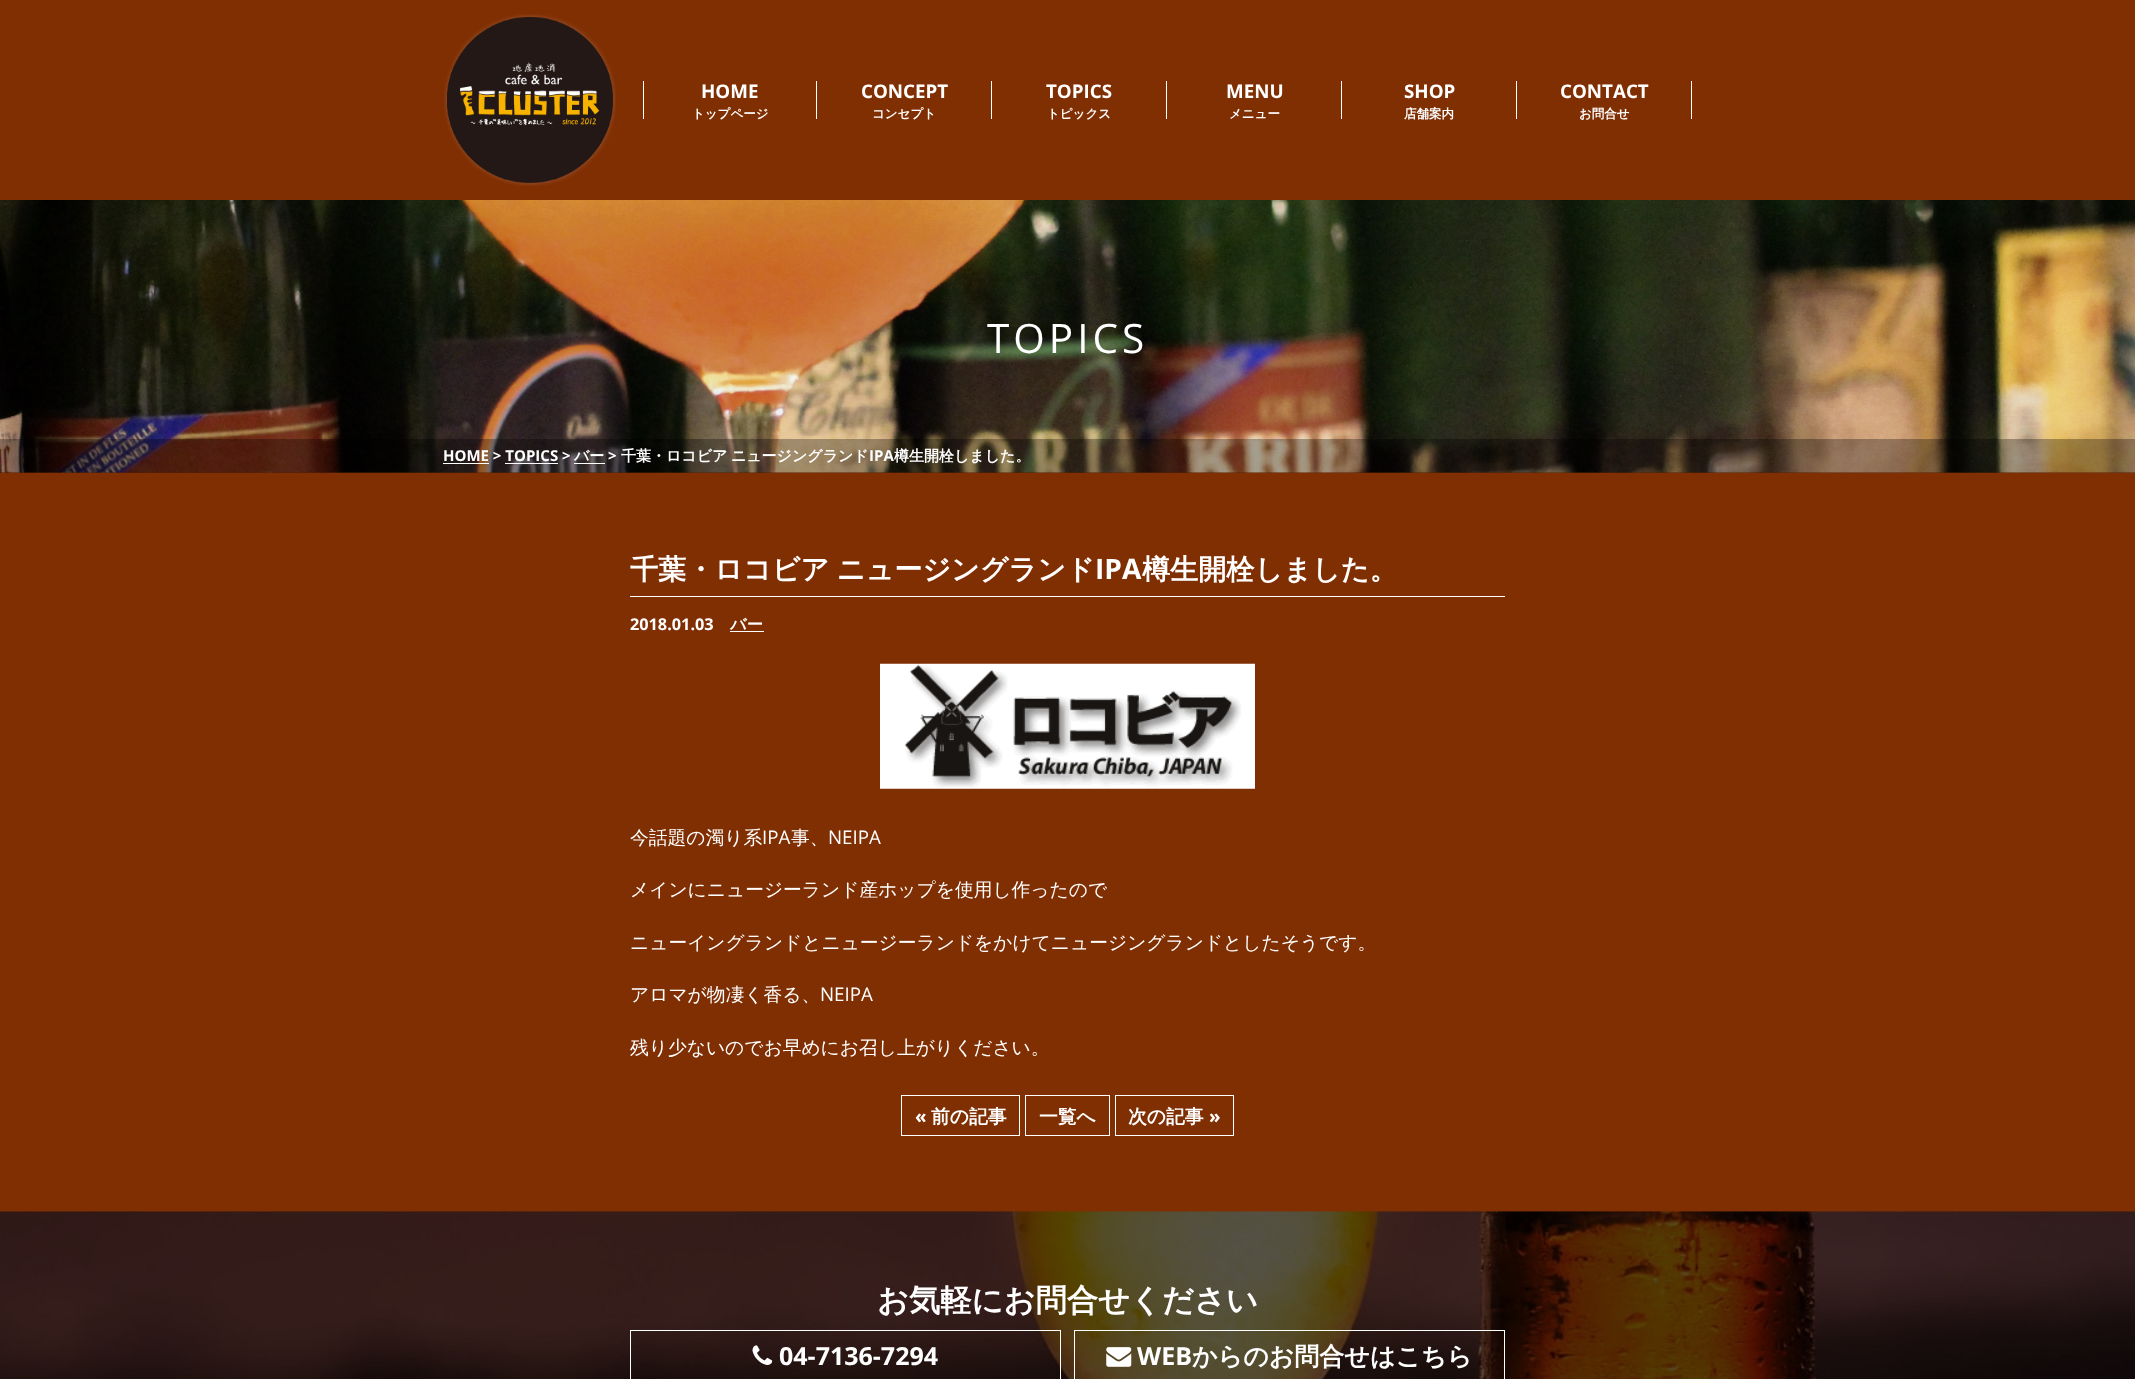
<svg xmlns="http://www.w3.org/2000/svg" width="2135" height="1379" viewBox="0 0 2135 1379">
  <style>
    .t1 { font: bold 18.75px Open Sans; fill: #fff; }
    .t2 { font: bold 12.5px WenQuanYi Zen Hei; fill: #fff; }
    .t3 { font: 40.5px Open Sans; letter-spacing: 4px; fill: #fff; }
    .t4 { font: bold 15px Open Sans; fill: #fff; }
    .t5 { font: bold 15px WenQuanYi Zen Hei; fill: #fff; }
    .t6 { font: bold 28.1px WenQuanYi Zen Hei; fill: #fff; }
    .t7 { font: bold 28.1px Open Sans; fill: #fff; }
    .t8 { font: bold 16.25px Open Sans; fill: #fff; }
    .t9 { font: bold 16.25px WenQuanYi Zen Hei; fill: #fff; }
    .t10 { font: 500 18.75px WenQuanYi Zen Hei; fill: #fff; }
    .t11 { font: 18.75px Open Sans; fill: #fff; }
    .t12 { font: bold 18.75px WenQuanYi Zen Hei; fill: #fff; }
    .t13 { font: bold 31.25px WenQuanYi Zen Hei; fill: #fff; }
    .t14 { font: bold 25px Open Sans; fill: #fff; }
    .t15 { font: bold 25px WenQuanYi Zen Hei; fill: #fff; }
  </style>
  <rect width="100%" height="100%" fill="#802f03"/>
  <image x="444" y="14" width="172" height="172" href="images/1.png"/>
  <rect x="816" y="81" width="1" height="38" fill="#fff"/>
  <rect x="643" y="81" width="1" height="38" fill="#fff"/>
  <text x="701" y="98" class="t1">HOME</text>
  <text x="692" y="118" class="t2">トップページ</text>
  <rect x="991" y="81" width="1" height="38" fill="#fff"/>
  <text x="861" y="98" class="t1">CONCEPT</text>
  <text x="872" y="118" class="t2">コンセプト</text>
  <rect x="1166" y="81" width="1" height="38" fill="#fff"/>
  <text x="1046" y="98" class="t1">TOPICS</text>
  <text x="1047" y="118" class="t2">トピックス</text>
  <rect x="1341" y="81" width="1" height="38" fill="#fff"/>
  <text x="1226" y="98" class="t1">MENU</text>
  <text x="1229" y="118" class="t2">メニュー</text>
  <rect x="1516" y="81" width="1" height="38" fill="#fff"/>
  <text x="1404" y="98" class="t1">SHOP</text>
  <text x="1404" y="118" class="t2">店舗案内</text>
  <rect x="1691" y="81" width="1" height="38" fill="#fff"/>
  <text x="1560" y="98" class="t1">CONTACT</text>
  <text x="1579" y="118" class="t2">お問合せ</text>
  <image x="0" y="200" width="2135" height="273" href="images/2.png"/>
  <text x="987" y="353" class="t3">TOPICS</text>
  <rect x="0" y="439" width="2135" height="34" fill="#0000004d"/>
  <text x="443" y="461" class="t4">HOME &gt; TOPICS &gt;</text>
  <rect x="443" y="463" width="46" height="1" fill="#fff"/>
  <text x="574" y="461" class="t5">バー</text>
  <rect x="574" y="463" width="31" height="1" fill="#fff"/>
  <text x="608" y="461" class="t4">&gt;</text>
  <text x="621" y="461" word-spacing="-1" class="t5">千葉・ロコビア ニュージングランド</text>
  <text x="869" y="461" class="t4">IPA</text>
  <text x="894" y="461" class="t5">樽生開栓しました。</text>
  <rect x="505" y="463" width="53" height="1" fill="#fff"/>
  <rect x="630" y="596" width="875" height="1" fill="#fff"/>
  <text x="630" y="579" word-spacing="-1" class="t6">千葉・ロコビア ニュージングランド</text>
  <text x="1095" y="579" class="t7">IPA</text>
  <text x="1142" y="579" class="t6">樽生開栓しました。</text>
  <text x="630" y="630" class="t8">2018.01.03</text>
  <text x="730" y="630" class="t9">バー</text>
  <rect x="730" y="631" width="34" height="1" fill="#fff"/>
  <image x="880" y="663" width="375" height="126" href="images/3.png"/>
  <text x="630" y="844" class="t10">今話題の濁り系</text>
  <text x="762" y="844" class="t11">IPA</text>
  <text x="791" y="844" class="t10">事、</text>
  <text x="828" y="844" class="t11">NEIPA</text>
  <text x="630" y="896" class="t10">メインにニュージーランド産ホップを使用し作ったので</text>
  <text x="630" y="949" class="t10">ニューイングランドとニュージーランドをかけてニュージングランドとしたそうです。</text>
  <text x="630" y="1001" class="t10">アロマが物凄く香る、</text>
  <text x="820" y="1001" class="t11">NEIPA</text>
  <text x="630" y="1054" class="t10">残り少ないのでお早めにお召し上がりください。</text>
  <rect x="901.5" y="1095.5" width="118" height="40" fill="none" stroke="#fff"/>
  <text x="915" y="1123" class="t1">«</text>
  <text x="931" y="1123" class="t12">前の記事</text>
  <rect x="1025.5" y="1095.5" width="84" height="40" fill="none" stroke="#fff"/>
  <text x="1039" y="1123" class="t12">一覧へ</text>
  <rect x="1115.5" y="1095.5" width="118" height="40" fill="none" stroke="#fff"/>
  <text x="1128" y="1123" class="t12">次の記事</text>
  <text x="1209" y="1123" class="t1">»</text>
  <image x="0" y="1211" width="2135" height="168" href="images/4.png"/>
  <text x="877" y="1311" class="t13">お気軽にお問合せください</text>
  <rect x="630.5" y="1330.5" width="430" height="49" fill="none" stroke="#fff"/>
  <image x="752" y="1345" width="21" height="20" href="images/5.png"/>
  <text x="779" y="1365" class="t14">04-7136-7294</text>
  <rect x="1074.5" y="1330.5" width="430" height="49" fill="none" stroke="#fff"/>
  <image x="1106" y="1347" width="26" height="20" href="images/6.png"/>
  <text x="1137" y="1365" class="t14">WEB</text>
  <text x="1192" y="1365" class="t15">からのお問合せはこちら</text>
</svg>
